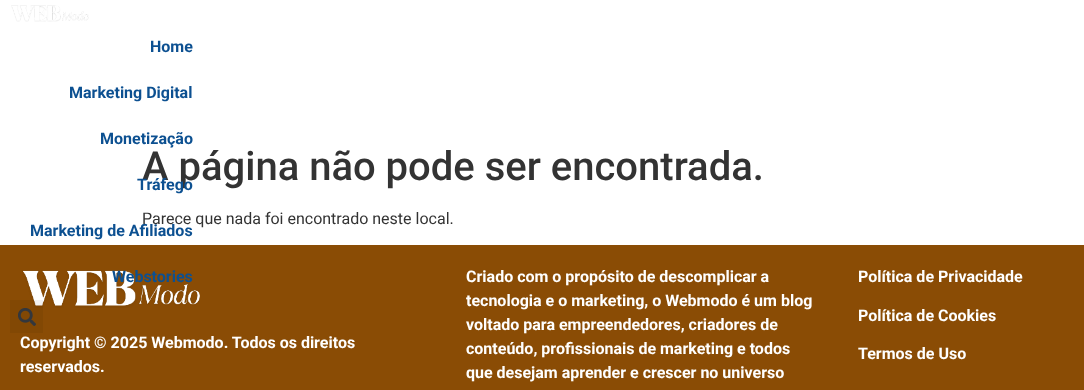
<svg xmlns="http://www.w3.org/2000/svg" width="1084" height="390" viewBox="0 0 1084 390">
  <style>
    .t1 { font: bold 16px Roboto; fill: #0c5091; }
    .t2 { font: 500 40px Roboto; fill: #333; }
    .t3 { font: 16px Roboto; fill: #333; }
    .t4 { font: bold 16px Roboto; fill: #fff; }
  </style>
  <rect width="100%" height="100%" fill="#fff"/>
  <image x="11" y="5" width="78" height="17" href="images/1.png"/>
  <text x="150" y="52" class="t1">Home</text>
  <text x="69" y="98" class="t1">Marketing Digital</text>
  <text x="100" y="144" class="t1">Monetização</text>
  <text x="142" y="180" class="t2">A página não pode ser encontrada.</text>
  <text x="137" y="190" class="t1">Tráfego</text>
  <text x="30" y="236" class="t1">Marketing de Afiliados</text>
  <rect x="0" y="245" width="1084" height="145" fill="#8a4c05"/>
  <image x="22" y="270" width="178" height="38" href="images/3.png"/>
  <text x="112" y="282" class="t1">Webstories</text>
  <rect x="10" y="300" width="33" height="33" fill="#0000000d"/>
  <image x="18" y="308" width="18" height="18" href="images/2.png"/>
  <text x="142" y="224" class="t3">Parece que nada foi encontrado neste local.</text>
  <text x="20" y="348" class="t4">Copyright © 2025 Webmodo. Todos os direitos</text>
  <text x="20" y="372" class="t4">reservados.</text>
  <text x="466" y="282" class="t4">Criado com o propósito de descomplicar a</text>
  <text x="466" y="306" class="t4">tecnologia e o marketing, o Webmodo é um blog</text>
  <text x="466" y="330" class="t4">voltado para empreendedores, criadores de</text>
  <text x="466" y="354" class="t4">conteúdo, profissionais de marketing e todos</text>
  <text x="466" y="378" class="t4">que desejam aprender e crescer no universo</text>
  <text x="858" y="282" class="t4">Política de Privacidade</text>
  <text x="858" y="321" class="t4">Política de Cookies</text>
  <text x="858" y="359" class="t4">Termos de Uso</text>
</svg>
